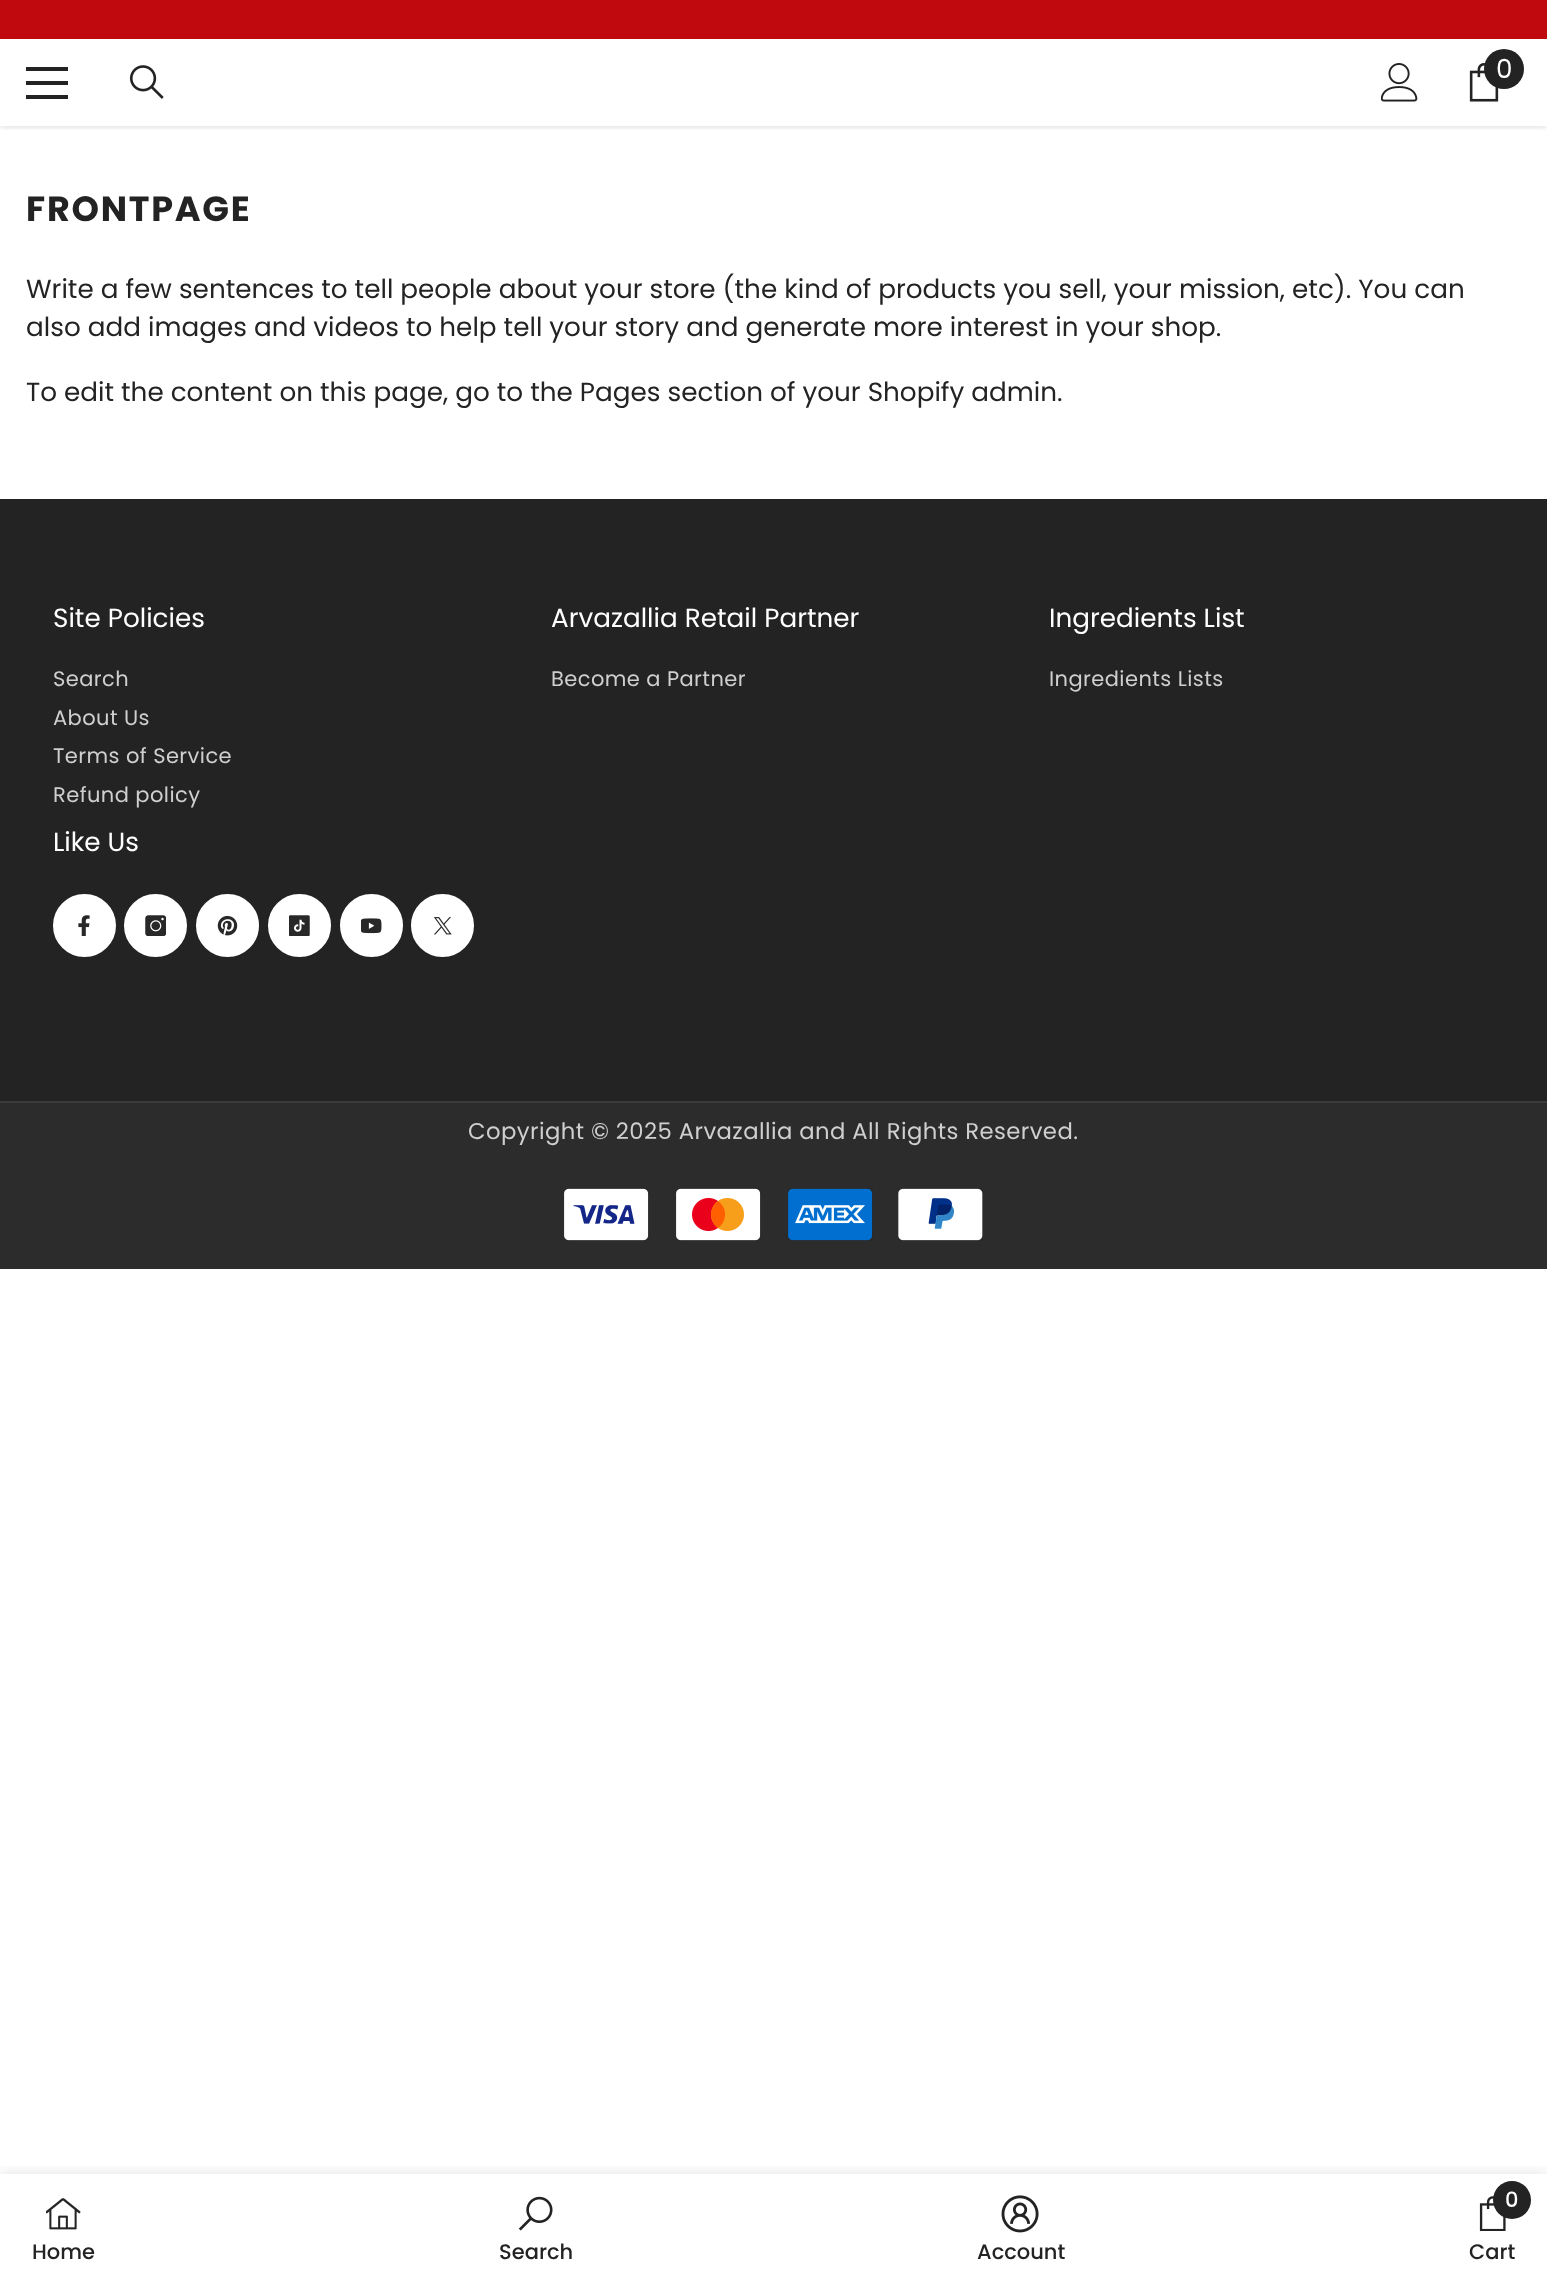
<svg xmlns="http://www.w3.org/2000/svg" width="1547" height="2282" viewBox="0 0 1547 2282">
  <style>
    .t1 { font: 26.25px Poppins; fill: #fff; }
    .t2 { font: bold 35px Poppins; letter-spacing: 1.75px; fill: #232323; }
    .t3 { font: 26.25px Poppins; fill: #232323; }
    .t4 { font: 21px Poppins; letter-spacing: 0.42px; fill: #cfcfcf; }
    .t5 { font: 22.75px Poppins; letter-spacing: 0.42px; fill: #cfcfcf; }
    .t6 { font: 500 21px Poppins; fill: #232323; }
    .t7 { font: 500 21px Poppins; fill: #fff; }
  </style>
  <defs>
    <clipPath id="clip1"><rect x="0" y="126" width="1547" height="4"/></clipPath>
    <clipPath id="clip2"><rect x="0" y="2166" width="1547" height="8"/></clipPath>
  </defs>
  <rect width="100%" height="100%" fill="#fff"/>
  <rect x="0" y="0" width="1547" height="39" fill="#c0080f"/>
  <g clip-path="url(#clip1)">
    <rect x="0" y="40" width="1547" height="88" fill="#0000001a" filter="blur(2.5px)"/>
  </g>
  <rect x="26" y="81" width="42" height="4" fill="#232323"/>
  <rect x="26" y="67" width="42" height="4" fill="#232323"/>
  <rect x="26" y="95" width="42" height="4" fill="#232323"/>
  <image x="129" y="65" width="35" height="34" href="images/1.png"/>
  <image x="1381" y="63" width="37" height="39" href="images/2.png"/>
  <image x="1469" y="63" width="30" height="39" href="images/3.png"/>
  <circle cx="1504" cy="69" r="20" fill="#232323"/>
  <text x="1496" y="78" class="t1">0</text>
  <text x="26" y="221" class="t2">FRONTPAGE</text>
  <text x="26" y="298" class="t3">Write a few sentences to tell people about your store (the kind of products you sell, your mission, etc). You can</text>
  <text x="26" y="336" class="t3">also add images and videos to help tell your story and generate more interest in your shop.</text>
  <text x="26" y="401" class="t3">To edit the content on this page, go to the Pages section of your Shopify admin.</text>
  <rect x="0" y="499" width="1547" height="602" fill="#232323"/>
  <text x="53" y="627" class="t1">Site Policies</text>
  <text x="53" y="686" class="t4">Search</text>
  <text x="53" y="725" class="t4">About Us</text>
  <text x="53" y="763" class="t4">Terms of Service</text>
  <text x="53" y="802" class="t4">Refund policy</text>
  <text x="551" y="627" class="t1">Arvazallia Retail Partner</text>
  <text x="551" y="686" class="t4">Become a Partner</text>
  <text x="1049" y="627" class="t1">Ingredients List</text>
  <text x="1049" y="686" class="t4">Ingredients Lists</text>
  <text x="53" y="851" class="t1">Like Us</text>
  <circle cx="84.5" cy="925.5" r="29.5" fill="#fff" stroke="#fff" stroke-width="4"/>
  <image x="78" y="915" width="12" height="21" href="images/4.png"/>
  <circle cx="155.5" cy="925.5" r="29.5" fill="#fff" stroke="#fff" stroke-width="4"/>
  <image x="145" y="915" width="21" height="21" href="images/5.png"/>
  <circle cx="227.5" cy="925.5" r="29.5" fill="#fff" stroke="#fff" stroke-width="4"/>
  <image x="217" y="915" width="21" height="21" href="images/6.png"/>
  <circle cx="299.5" cy="925.5" r="29.5" fill="#fff" stroke="#fff" stroke-width="4"/>
  <image x="289" y="915" width="21" height="21" href="images/7.png"/>
  <circle cx="371.5" cy="925.5" r="29.5" fill="#fff" stroke="#fff" stroke-width="4"/>
  <image x="361" y="918" width="21" height="16" href="images/8.png"/>
  <circle cx="442.5" cy="925.5" r="29.5" fill="#fff" stroke="#fff" stroke-width="4"/>
  <image x="434" y="917" width="18" height="18" href="images/9.png"/>
  <rect x="0" y="1103" width="1547" height="166" fill="#2c2c2c"/>
  <rect x="0" y="1101" width="1547" height="2" fill="#3a3a3a"/>
  <text x="468" y="1139" class="t5">Copyright © 2025 Arvazallia and All Rights Reserved.</text>
  <image x="564" y="1188" width="85" height="53" href="images/10.png"/>
  <image x="676" y="1188" width="85" height="53" href="images/11.png"/>
  <image x="788" y="1188" width="85" height="53" href="images/12.png"/>
  <image x="898" y="1188" width="85" height="53" href="images/13.png"/>
  <g clip-path="url(#clip2)">
    <rect x="0" y="2174" width="1547" height="108" fill="#0000001f" filter="blur(8px)"/>
  </g>
  <image x="46" y="2198" width="35" height="32" href="images/14.png"/>
  <text x="32" y="2259" class="t6">Home</text>
  <image x="518" y="2196" width="35" height="35" href="images/15.png"/>
  <text x="499" y="2259" class="t6">Search</text>
  <image x="1001" y="2195" width="38" height="38" href="images/16.png"/>
  <text x="977" y="2259" class="t6">Account</text>
  <image x="1479" y="2196" width="27" height="35" href="images/17.png"/>
  <circle cx="1512" cy="2200" r="19" fill="#232323"/>
  <text x="1505" y="2207" class="t7">0</text>
  <text x="1469" y="2259" class="t6">Cart</text>
</svg>
